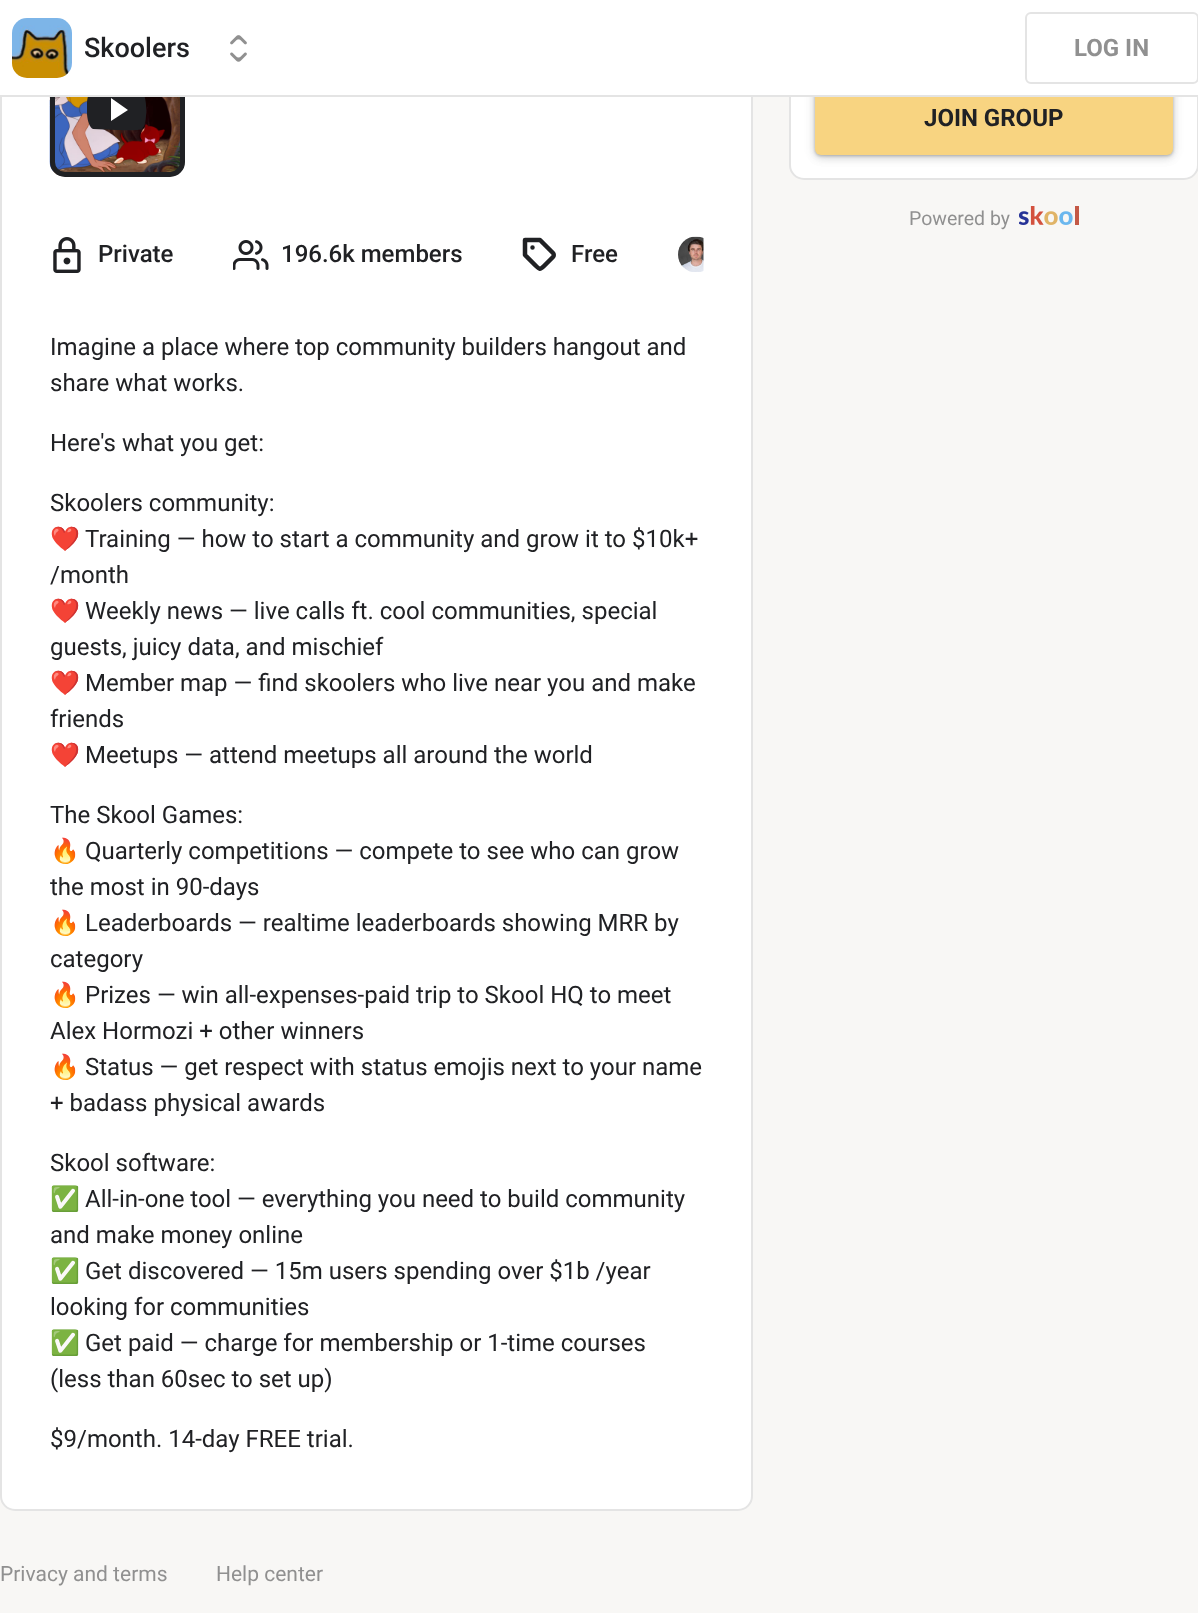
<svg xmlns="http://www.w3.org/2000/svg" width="1198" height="1613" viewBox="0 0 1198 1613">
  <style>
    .t1 { font: 500 27px Roboto; fill: #202124; }
    .t2 { font: bold 24px Roboto; fill: #909090; }
    .t3 { font: bold 24px Roboto; fill: #202124; }
    .t4 { font: 19.5px Roboto; fill: #909090; }
    .t5 { font: 500 24px Roboto; fill: #202124; }
    .t6 { font: 24px Roboto; fill: #202124; }
    .t7 { font: 24px Noto Color Emoji; fill: #202124; }
    .t8 { font: 21px Roboto; fill: #909090; }
  </style>
  <defs>
    <clipPath id="clip1"><rect x="87" y="80" width="60" height="60"/></clipPath>
  </defs>
  <rect width="100%" height="100%" fill="#f8f7f5"/>
  <rect x="790" y="-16" width="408" height="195" rx="14" fill="#fff" stroke="#e4e4e4" stroke-width="2"/>
  <rect x="815" y="84" width="358" height="72" rx="6" fill="#0000001a" filter="blur(6px)"/>
  <rect x="815" y="86" width="358" height="72" rx="6" fill="#3c404326" filter="blur(4.5px)"/>
  <rect x="815" y="84" width="358" height="72" rx="6" fill="#3c404352" filter="blur(1.5px)"/>
  <rect x="815" y="83" width="358" height="72" rx="6" fill="#f8d481"/>
  <rect x="1" y="-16" width="751" height="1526" rx="14" fill="#fff" stroke="#e4e4e4" stroke-width="2"/>
  <image x="49" y="97" width="136" height="80" href="images/4.png"/>
  <rect x="111" y="98" width="17" height="23" fill="#fff"/>
  <g clip-path="url(#clip1)">
    <path d="M111 121V98L128 110ZM140 90C135 88 95 88 91 90C85 95 85 126 93 129L117 130C121 130 139 131 142 129C148 124 148 92 140 90Z" fill="#202124"/>
  </g>
  <rect x="52.5" y="44.5" width="130" height="130" rx="12.5" fill="none" stroke="#202124" stroke-width="5"/>
  <rect x="0" y="0" width="1198" height="95" fill="#fff"/>
  <rect x="0" y="95" width="1198" height="2" fill="#e4e4e4"/>
  <image x="12" y="18" width="60" height="60" href="images/1.png"/>
  <text x="84" y="57" class="t1">Skoolers</text>
  <image x="230" y="35" width="17" height="27" href="images/2.png"/>
  <rect x="1026" y="13" width="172" height="70" rx="5" fill="none" stroke="#e4e4e4" stroke-width="2"/>
  <text x="1074" y="56" class="t2">LOG IN</text>
  <text x="924" y="126" class="t3">JOIN GROUP</text>
  <text x="909" y="225" class="t4">Powered by</text>
  <image x="1019" y="206" width="60" height="19" href="images/3.png"/>
  <image x="53" y="237" width="28" height="36" href="images/5.png"/>
  <text x="98" y="262" class="t5">Private</text>
  <image x="233" y="240" width="36" height="30" href="images/6.png"/>
  <text x="281" y="262" class="t5">196.6k members</text>
  <path d="M553 257L544 266C540 270 539.5 269.5 535.5 265.5L525 255V240H540L553 253C554 254 554 256 553 257ZM532.5 247.5H532.5" fill="none" stroke="#202124" stroke-width="4.5" stroke-linecap="round" stroke-linejoin="round"/>
  <text x="571" y="262" class="t5">Free</text>
  <image x="678" y="236" width="26" height="36" href="images/7.png"/>
  <text x="50" y="355" class="t6">Imagine a place where top community builders hangout and</text>
  <text x="50" y="391" class="t6">share what works.</text>
  <text x="50" y="451" class="t6">Here's what you get:</text>
  <text x="50" y="511" class="t6">Skoolers community:</text>
  <text x="50" y="547" class="t7">❤️</text>
  <text x="85" y="547" class="t6">Training — how to start a community and grow it to $10k+</text>
  <text x="50" y="583" class="t6">/month</text>
  <text x="50" y="619" class="t7">❤️</text>
  <text x="85" y="619" class="t6">Weekly news — live calls ft. cool communities, special</text>
  <text x="50" y="655" class="t6">guests, juicy data, and mischief</text>
  <text x="50" y="691" class="t7">❤️</text>
  <text x="85" y="691" class="t6">Member map — find skoolers who live near you and make</text>
  <text x="50" y="727" class="t6">friends</text>
  <text x="50" y="763" class="t7">❤️</text>
  <text x="85" y="763" class="t6">Meetups — attend meetups all around the world</text>
  <text x="50" y="823" class="t6">The Skool Games:</text>
  <text x="50" y="859" class="t7">🔥</text>
  <text x="85" y="859" class="t6">Quarterly competitions — compete to see who can grow</text>
  <text x="50" y="895" class="t6">the most in 90-days</text>
  <text x="50" y="931" class="t7">🔥</text>
  <text x="85" y="931" class="t6">Leaderboards — realtime leaderboards showing MRR by</text>
  <text x="50" y="967" class="t6">category</text>
  <text x="50" y="1003" class="t7">🔥</text>
  <text x="85" y="1003" class="t6">Prizes — win all-expenses-paid trip to Skool HQ to meet</text>
  <text x="50" y="1039" class="t6">Alex Hormozi + other winners</text>
  <text x="50" y="1075" class="t7">🔥</text>
  <text x="85" y="1075" class="t6">Status — get respect with status emojis next to your name</text>
  <text x="50" y="1111" class="t6">+ badass physical awards</text>
  <text x="50" y="1171" class="t6">Skool software:</text>
  <text x="50" y="1207" class="t7">✅</text>
  <text x="85" y="1207" class="t6">All-in-one tool — everything you need to build community</text>
  <text x="50" y="1243" class="t6">and make money online</text>
  <text x="50" y="1279" class="t7">✅</text>
  <text x="85" y="1279" class="t6">Get discovered — 15m users spending over $1b /year</text>
  <text x="50" y="1315" class="t6">looking for communities</text>
  <text x="50" y="1351" class="t7">✅</text>
  <text x="85" y="1351" class="t6">Get paid — charge for membership or 1-time courses</text>
  <text x="50" y="1387" class="t6">(less than 60sec to set up)</text>
  <text x="50" y="1447" class="t6">$9/month. 14-day FREE trial.</text>
  <text x="0" y="1581" class="t8">Privacy and terms</text>
  <text x="216" y="1581" class="t8">Help center</text>
</svg>
